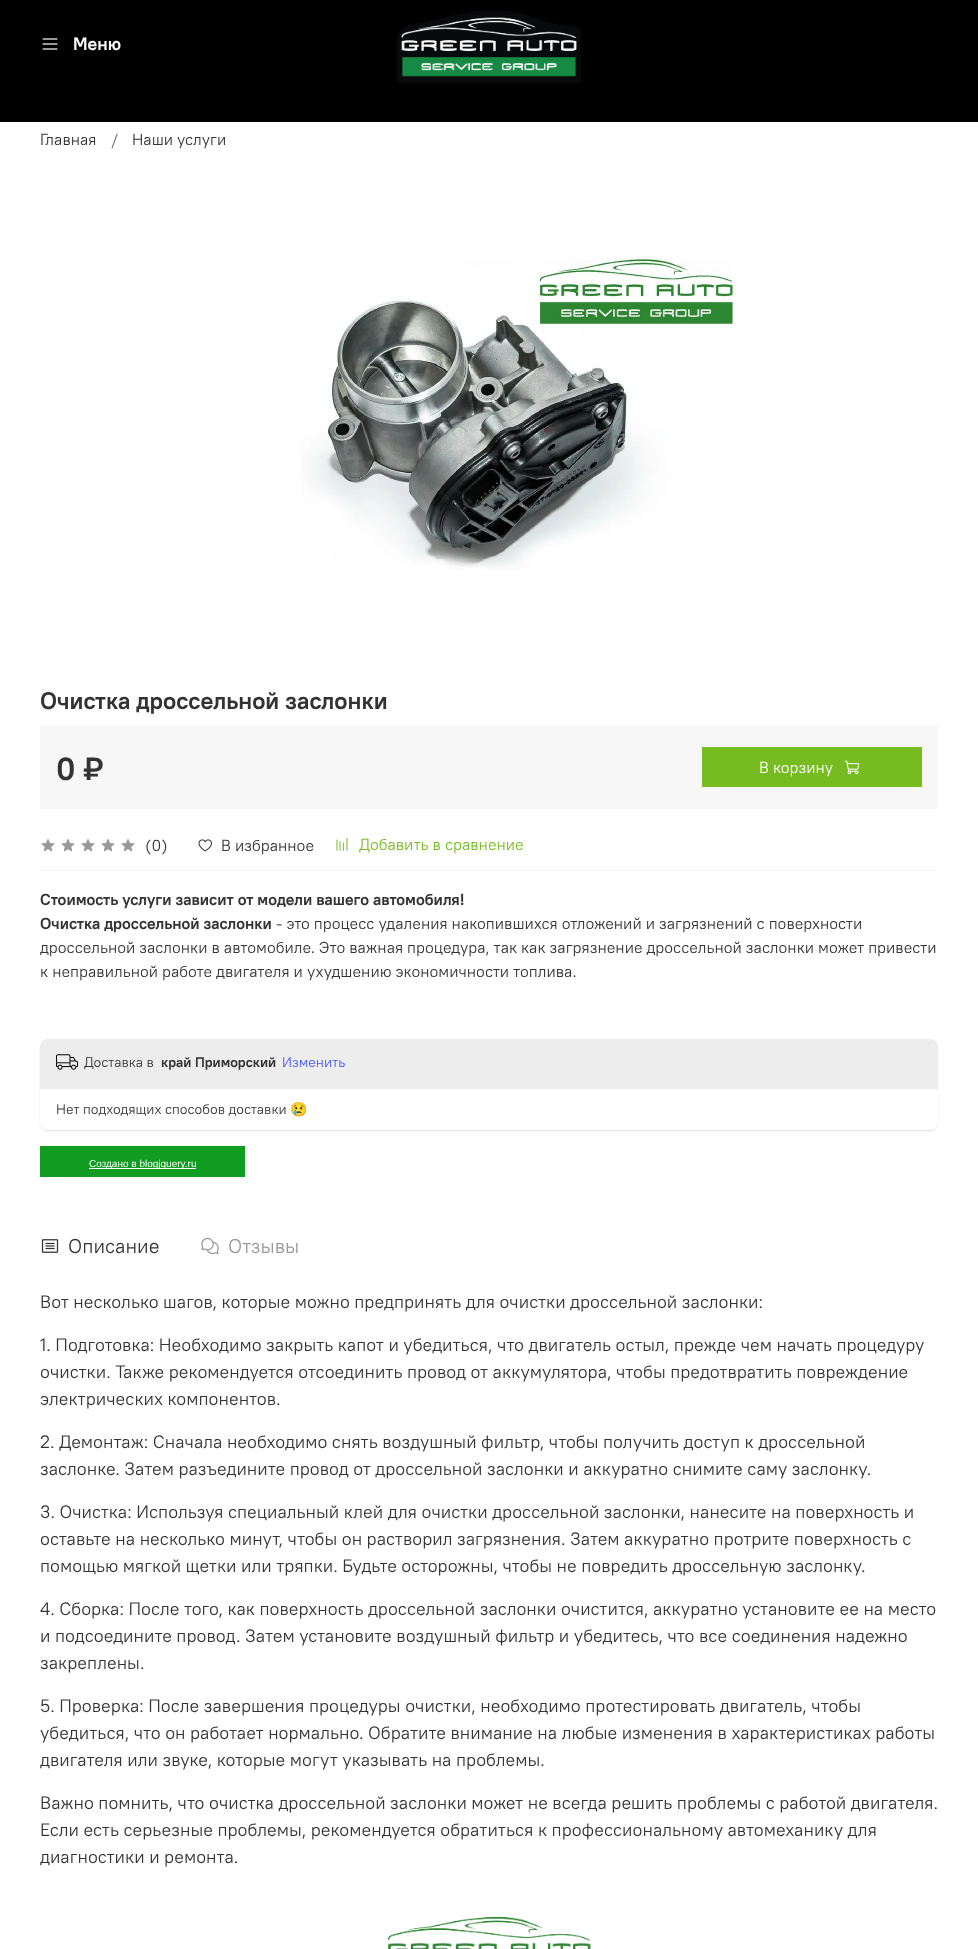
<svg xmlns="http://www.w3.org/2000/svg" width="978" height="1949" viewBox="0 0 978 1949">
  <style>
    .t1 { font: bold 18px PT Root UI; fill: #fff; }
    .t2 { font: 16px PT Root UI; fill: #333; }
    .t3 { font: 16px PT Root UI; fill: #707070; }
    .t4 { font: bold 24px PT Root UI; fill: #333; }
    .t5 { font: bold 32px PT Root UI; fill: #333; }
    .t6 { font: 16px PT Root UI; fill: #fff; }
    .t7 { font: 16px PT Root UI; fill: #76bc21; }
    .t8 { font: bold 16px PT Root UI; fill: #333; }
    .t9 { font: 14px PT Root UI; fill: #333; }
    .t10 { font: bold 14px PT Root UI; fill: #333; }
    .t11 { font: 14px PT Root UI; fill: #4657ef; }
    .t12 { font: 14px Noto Color Emoji; fill: #333; }
    .t13 { font: 10px Liberation Sans; fill: #fff; }
    .t14 { font: 20px PT Root UI; fill: #333; }
    .t15 { font: 20px PT Root UI; fill: #999; }
    .t16 { font: 18px PT Root UI; fill: #333; }
  </style>
  <defs>
    <clipPath id="clip1"><path d="M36 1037H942V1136H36ZM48 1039H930C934.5 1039 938 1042.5 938 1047V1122C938 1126.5 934.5 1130 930 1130H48C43.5 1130 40 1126.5 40 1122V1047C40 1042.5 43.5 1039 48 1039Z" clip-rule="evenodd"/></clipPath>
    <clipPath id="clip2"><path d="M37 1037H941V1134H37ZM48 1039H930C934.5 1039 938 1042.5 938 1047V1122C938 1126.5 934.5 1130 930 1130H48C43.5 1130 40 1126.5 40 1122V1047C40 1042.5 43.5 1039 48 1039Z" clip-rule="evenodd"/></clipPath>
  </defs>
  <rect width="100%" height="100%" fill="#fff"/>
  <rect x="0" y="0" width="978" height="122" fill="#000"/>
  <image x="42" y="38" width="16" height="12" href="images/1.png"/>
  <text x="73" y="50" class="t1">Меню</text>
  <image x="397" y="11" width="184" height="72" href="images/2.png"/>
  <text x="40" y="145" class="t2">Главная</text>
  <text x="111" y="145" class="t3">/</text>
  <text x="132" y="145" class="t2">Наши услуги</text>
  <image x="301" y="258" width="435" height="312" href="images/3.png"/>
  <text x="40" y="709" class="t4">Очистка дроссельной заслонки</text>
  <rect x="40" y="725" width="898" height="84" fill="#f7f7f7"/>
  <text x="56" y="780" class="t5">0 ₽</text>
  <rect x="702" y="747" width="220" height="40" fill="#76bc21"/>
  <text x="759" y="773" class="t6">В корзину</text>
  <image x="844" y="760" width="16" height="15" href="images/4.png"/>
  <rect x="40" y="870" width="898" height="1" fill="#f7f7f7"/>
  <image x="41" y="839" width="14" height="13" href="images/5.png"/>
  <image x="61" y="839" width="14" height="13" href="images/5.png"/>
  <image x="81" y="839" width="14" height="13" href="images/5.png"/>
  <image x="101" y="839" width="14" height="13" href="images/5.png"/>
  <image x="121" y="839" width="14" height="13" href="images/5.png"/>
  <text x="145" y="851" class="t2">(0)</text>
  <image x="198" y="839" width="14" height="13" href="images/6.png"/>
  <text x="221" y="851" class="t2">В избранное</text>
  <image x="336" y="838" width="12" height="13" href="images/7.png"/>
  <text x="359" y="850" class="t7">Добавить в сравнение</text>
  <text x="40" y="905" class="t8">Стоимость услуги зависит от модели вашего автомобиля!</text>
  <text x="40" y="929" class="t8">Очистка дроссельной заслонки</text>
  <text x="276" y="929" class="t2">- это процесс удаления накопившихся отложений и загрязнений с поверхности</text>
  <text x="40" y="953" class="t2">дроссельной заслонки в автомобиле. Это важная процедура, так как загрязнение дроссельной заслонки может привести</text>
  <text x="40" y="977" class="t2">к неправильной работе двигателя и ухудшению экономичности топлива.</text>
  <g clip-path="url(#clip1)">
    <rect x="40" y="1041" width="898" height="91" rx="8" fill="#0000000d" filter="blur(1px)"/>
  </g>
  <g clip-path="url(#clip2)">
    <rect x="40" y="1040" width="898" height="91" rx="8" fill="#0000000d" filter="blur(0.5px)"/>
  </g>
  <path d="M48 1039H930C934.5 1039 938 1042.5 938 1047V1089H40V1047C40 1042.5 43.5 1039 48 1039Z" fill="#ededed"/>
  <image x="56" y="1054" width="22" height="16" href="images/8.png"/>
  <text x="84" y="1067" class="t9">Доставка в</text>
  <text x="161" y="1067" class="t10">край Приморский</text>
  <text x="282" y="1067" class="t11">Изменить</text>
  <text x="56" y="1114" class="t9">Нет подходящих способов доставки</text>
  <text x="290" y="1114" class="t12">😢</text>
  <rect x="40.5" y="1146.5" width="204" height="30" fill="none" stroke="#119c22"/>
  <rect x="41" y="1147" width="203" height="29" fill="#119c22"/>
  <rect x="89" y="1168" width="107" height="1" fill="#fff"/>
  <text x="89" y="1167" class="t13">Создано в blogjquery.ru</text>
  <image x="41" y="1239" width="18" height="14" href="images/9.png"/>
  <text x="68" y="1253" class="t14">Описание</text>
  <image x="201" y="1237" width="18" height="18" href="images/10.png"/>
  <text x="228" y="1253" class="t15">Отзывы</text>
  <text x="40" y="1308" class="t16">Вот несколько шагов, которые можно предпринять для очистки дроссельной заслонки:</text>
  <text x="40" y="1351" class="t16">1. Подготовка: Необходимо закрыть капот и убедиться, что двигатель остыл, прежде чем начать процедуру</text>
  <text x="40" y="1378" class="t16">очистки. Также рекомендуется отсоединить провод от аккумулятора, чтобы предотвратить повреждение</text>
  <text x="40" y="1405" class="t16">электрических компонентов.</text>
  <text x="40" y="1448" class="t16">2. Демонтаж: Сначала необходимо снять воздушный фильтр, чтобы получить доступ к дроссельной</text>
  <text x="40" y="1475" class="t16">заслонке. Затем разъедините провод от дроссельной заслонки и аккуратно снимите саму заслонку.</text>
  <text x="40" y="1518" class="t16">3. Очистка: Используя специальный клей для очистки дроссельной заслонки, нанесите на поверхность и</text>
  <text x="40" y="1545" class="t16">оставьте на несколько минут, чтобы он растворил загрязнения. Затем аккуратно протрите поверхность с</text>
  <text x="40" y="1572" class="t16">помощью мягкой щетки или тряпки. Будьте осторожны, чтобы не повредить дроссельную заслонку.</text>
  <text x="40" y="1615" class="t16">4. Сборка: После того, как поверхность дроссельной заслонки очистится, аккуратно установите ее на место</text>
  <text x="40" y="1642" class="t16">и подсоедините провод. Затем установите воздушный фильтр и убедитесь, что все соединения надежно</text>
  <text x="40" y="1669" class="t16">закреплены.</text>
  <text x="40" y="1712" class="t16">5. Проверка: После завершения процедуры очистки, необходимо протестировать двигатель, чтобы</text>
  <text x="40" y="1739" class="t16">убедиться, что он работает нормально. Обратите внимание на любые изменения в характеристиках работы</text>
  <text x="40" y="1766" class="t16">двигателя или звуке, которые могут указывать на проблемы.</text>
  <text x="40" y="1809" class="t16">Важно помнить, что очистка дроссельной заслонки может не всегда решить проблемы с работой двигателя.</text>
  <text x="40" y="1836" class="t16">Если есть серьезные проблемы, рекомендуется обратиться к профессиональному автомеханику для</text>
  <text x="40" y="1863" class="t16">диагностики и ремонта.</text>
  <image x="387" y="1916" width="204" height="33" href="images/11.png"/>
</svg>
